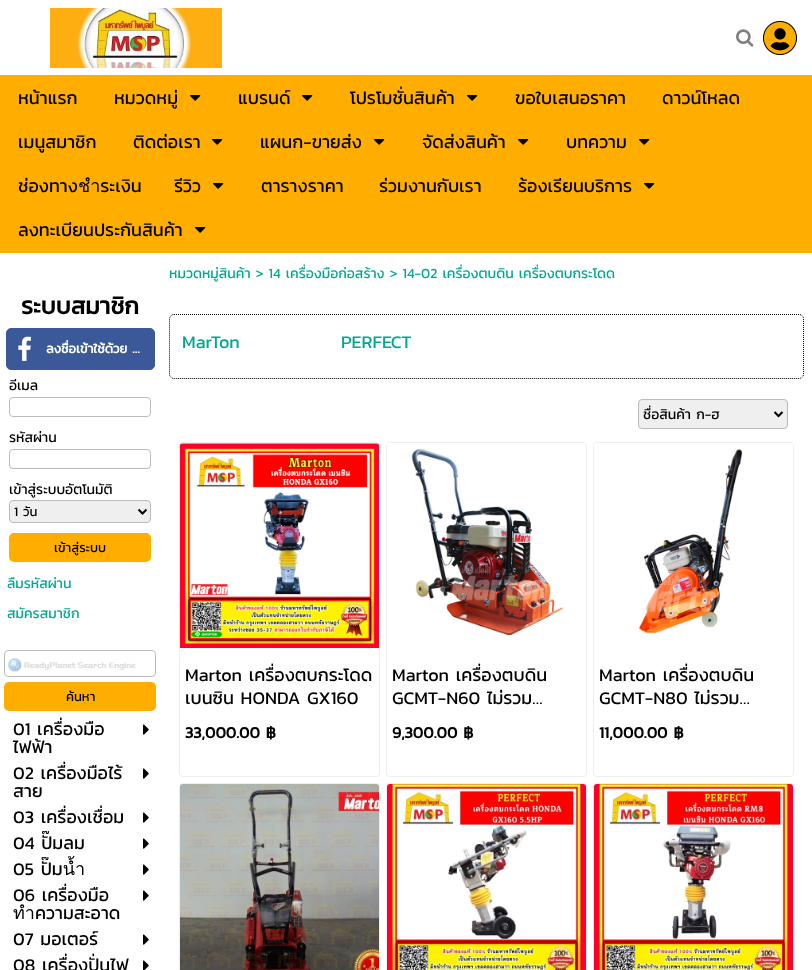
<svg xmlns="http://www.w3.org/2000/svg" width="812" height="970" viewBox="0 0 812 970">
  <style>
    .t1 { font: 18px Kanit; fill: #000; }
    .t2 { font: 14px Kanit; fill: #00a894; }
    .t3 { font: bold 24px Kanit; fill: #000; }
    .t4 { font: bold 13px Kanit; fill: #fff; }
    .t5 { font: 14px Kanit; fill: #000; }
    .t6 { font: 13px Kanit; fill: #000; }
    .t7 { font: 18px Kanit; fill: #00a894; }
    .t8 { font: bold 16px Kanit; fill: #000; }
  </style>
  <defs>
    <clipPath id="clip1"><rect x="643" y="403" width="128" height="23"/></clipPath>
  </defs>
  <rect width="100%" height="100%" fill="#fff"/>
  <image x="50" y="8" width="172" height="60" href="images/1.png"/>
  <image x="736" y="29" width="18" height="18" href="images/2.png"/>
  <image x="763" y="21" width="34" height="34" href="images/3.png"/>
  <rect x="0" y="75" width="812" height="178" fill="#ffae00"/>
  <text x="18" y="104" class="t1">หน้าแรก</text>
  <text x="114" y="104" class="t1">หมวดหมู่</text>
  <image x="190" y="95" width="11" height="6" href="images/4.png"/>
  <text x="238" y="104" class="t1">แบรนด์</text>
  <image x="302" y="95" width="11" height="6" href="images/4.png"/>
  <text x="350" y="104" class="t1">โปรโมชั่นสินค้า</text>
  <image x="467" y="95" width="11" height="6" href="images/4.png"/>
  <text x="515" y="104" class="t1">ขอใบเสนอราคา</text>
  <text x="662" y="104" class="t1">ดาวน์โหลด</text>
  <text x="18" y="148" class="t1">เมนูสมาชิก</text>
  <text x="133" y="148" class="t1">ติดต่อเรา</text>
  <image x="212" y="139" width="11" height="6" href="images/4.png"/>
  <text x="260" y="148" class="t1">แผนก-ขายส่ง</text>
  <image x="374" y="139" width="11" height="6" href="images/4.png"/>
  <text x="422" y="148" class="t1">จัดส่งสินค้า</text>
  <image x="518" y="139" width="11" height="6" href="images/4.png"/>
  <text x="566" y="148" class="t1">บทความ</text>
  <image x="639" y="139" width="11" height="6" href="images/4.png"/>
  <text x="18" y="192" class="t1">ช่องทางชำระเงิน</text>
  <text x="174" y="192" class="t1">รีวิว</text>
  <image x="213" y="183" width="11" height="6" href="images/4.png"/>
  <text x="261" y="192" class="t1">ตารางราคา</text>
  <text x="379" y="192" class="t1">ร่วมงานกับเรา</text>
  <text x="518" y="192" class="t1">ร้องเรียนบริการ</text>
  <image x="644" y="183" width="11" height="6" href="images/4.png"/>
  <text x="18" y="236" class="t1">ลงทะเบียนประกันสินค้า</text>
  <image x="195" y="227" width="11" height="6" href="images/4.png"/>
  <text x="169" y="278" class="t2">หมวดหมู่สินค้า &gt; 14 เครื่องมือก่อสร้าง &gt; 14-02 เครื่องตบดิน เครื่องตบกระโดด</text>
  <text x="21" y="314" class="t3">ระบบสมาชิก</text>
  <rect x="6.5" y="328.5" width="148" height="41" rx="4.5" fill="#3b5998" stroke="#3b5998"/>
  <image x="18" y="336" width="13" height="25" href="images/5.png"/>
  <text x="46" y="353" class="t4">ลงชื่อเข้าใช้ด้วย …</text>
  <text x="9" y="390" class="t5">อีเมล</text>
  <rect x="9.5" y="397.5" width="141" height="19" rx="3.5" fill="none" stroke="#bbb"/>
  <text x="9" y="442" class="t5">รหัสผ่าน</text>
  <rect x="9.5" y="449.5" width="141" height="19" rx="3.5" fill="none" stroke="#bbb"/>
  <text x="9" y="494" class="t5">เข้าสู่ระบบอัตโนมัติ</text>
  <rect x="9.5" y="500.5" width="141" height="22" rx="3.5" fill="#efefef" stroke="#bbb"/>
  <path d="M138.5 509.5L142.5 513.5L146.5 509.5" fill="none" stroke="#000" stroke-width="2"/>
  <text x="14" y="516" class="t6">1 วัน</text>
  <rect x="9" y="533" width="142" height="29" rx="5" fill="#ffae00"/>
  <text x="54" y="552" class="t6">เข้าสู่ระบบ</text>
  <text x="7" y="588" class="t2">ลืมรหัสผ่าน</text>
  <text x="7" y="618" class="t2">สมัครสมาชิก</text>
  <image x="8" y="658" width="128" height="14" href="images/6.png"/>
  <rect x="4.5" y="650.5" width="151" height="26" rx="3.5" fill="none" stroke="#bbb"/>
  <rect x="4" y="682" width="152" height="29" rx="5" fill="#ffae00"/>
  <text x="66" y="701" class="t6">ค้นหา</text>
  <text x="13" y="735" class="t1">01 เครื่องมือ</text>
  <text x="13" y="753" class="t1">ไฟฟ้า</text>
  <image x="143" y="724" width="6" height="11" href="images/7.png"/>
  <text x="13" y="779" class="t1">02 เครื่องมือไร้</text>
  <text x="13" y="797" class="t1">สาย</text>
  <image x="143" y="768" width="6" height="11" href="images/7.png"/>
  <text x="13" y="823" class="t1">03 เครื่องเชื่อม</text>
  <image x="143" y="812" width="6" height="11" href="images/7.png"/>
  <text x="13" y="849" class="t1">04 ปั๊มลม</text>
  <image x="143" y="838" width="6" height="11" href="images/7.png"/>
  <text x="13" y="875" class="t1">05 ปั๊มน้ำ</text>
  <image x="143" y="864" width="6" height="11" href="images/7.png"/>
  <text x="13" y="901" class="t1">06 เครื่องมือ</text>
  <text x="13" y="919" class="t1">ทำความสะอาด</text>
  <image x="143" y="890" width="6" height="11" href="images/7.png"/>
  <text x="13" y="945" class="t1">07 มอเตอร์</text>
  <image x="143" y="934" width="6" height="11" href="images/7.png"/>
  <text x="13" y="971" class="t1">08 เครื่องปั่นไฟ</text>
  <image x="143" y="960" width="6" height="10" href="images/8.png"/>
  <path d="M174 314.5H799C801.5 314.5 803.5 316.5 803.5 319V374C803.5 376.5 801.5 378.5 799 378.5H174C171.5 378.5 169.5 376.5 169.5 374V319C169.5 316.5 171.5 314.5 174 314.5Z" fill="none" stroke="#000" stroke-dasharray="1 1"/>
  <text x="182" y="348" class="t7">MarTon</text>
  <text x="341" y="348" class="t7">PERFECT</text>
  <rect x="638.5" y="399.5" width="149" height="29" rx="3.5" fill="#efefef" stroke="#bbb"/>
  <path d="M774.5 412L778.5 416L782.5 412" fill="none" stroke="#000" stroke-width="2"/>
  <g clip-path="url(#clip1)">
    <text x="643" y="419" class="t5">ชื่อสินค้า ก-ฮ</text>
  </g>
  <rect x="179.5" y="442.5" width="200" height="334" rx="3.5" fill="none" stroke="#eee"/>
  <image x="180" y="443" width="199" height="205" href="images/9.png"/>
  <text x="185" y="681" class="t1">Marton เครื่องตบกระโดด</text>
  <text x="185" y="704" class="t1">เบนซิน HONDA GX160</text>
  <text x="185" y="738" class="t8">33,000.00 ฿</text>
  <rect x="386.5" y="442.5" width="200" height="334" rx="3.5" fill="none" stroke="#eee"/>
  <image x="387" y="443" width="199" height="193" href="images/10.png"/>
  <text x="392" y="681" class="t1">Marton เครื่องตบดิน</text>
  <text x="392" y="704" class="t1">GCMT-N60 ไม่รวม…</text>
  <text x="392" y="738" class="t8">9,300.00 ฿</text>
  <rect x="593.5" y="442.5" width="200" height="334" rx="3.5" fill="none" stroke="#eee"/>
  <image x="594" y="443" width="199" height="191" href="images/11.png"/>
  <text x="599" y="681" class="t1">Marton เครื่องตบดิน</text>
  <text x="599" y="704" class="t1">GCMT-N80 ไม่รวม…</text>
  <text x="599" y="738" class="t8">11,000.00 ฿</text>
  <rect x="179.5" y="783.5" width="200" height="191" rx="3.5" fill="none" stroke="#eee"/>
  <image x="180" y="784" width="199" height="186" href="images/12.png"/>
  <rect x="386.5" y="783.5" width="200" height="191" rx="3.5" fill="none" stroke="#eee"/>
  <image x="387" y="784" width="199" height="186" href="images/13.png"/>
  <rect x="593.5" y="783.5" width="200" height="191" rx="3.5" fill="none" stroke="#eee"/>
  <image x="594" y="784" width="199" height="186" href="images/14.png"/>
</svg>
